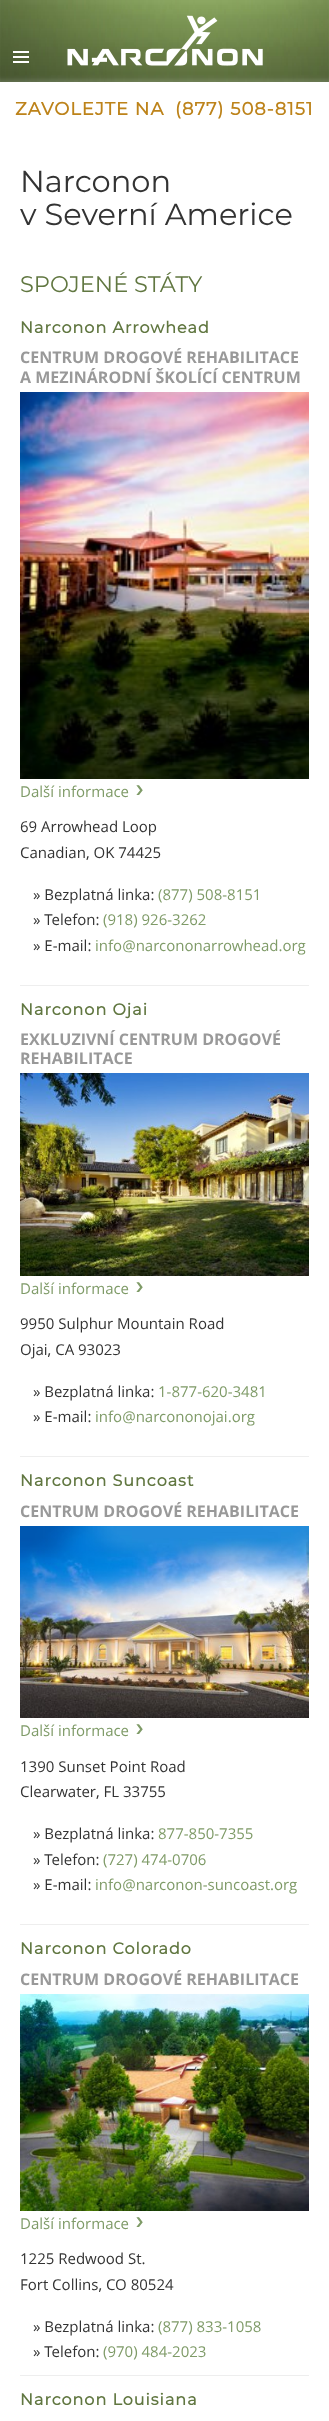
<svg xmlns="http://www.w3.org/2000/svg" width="329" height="2421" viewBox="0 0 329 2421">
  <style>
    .t1 { font: bold 18px Montserrat; letter-spacing: 1px; fill: #bd831a; }
    .t2 { font: 100 30.5px Montserrat; fill: #333; }
    .t3 { font: 100 22.5px Montserrat; fill: #617741; }
    .t4 { font: bold 16px Montserrat; letter-spacing: 1px; fill: #617741; }
    .t5 { font: bold 16px Open Sans; fill: #999; }
    .t6 { font: 15px Open Sans; fill: #7f9b68; }
    .t7 { font: 14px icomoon; fill: #7f9b68; }
    .t8 { font: 15px Open Sans; fill: #333; }
  </style>
  <rect width="100%" height="100%" fill="#fff"/>
  <image x="0" y="0" width="329" height="82" href="images/1.png"/>
  <image x="67" y="15" width="196" height="51" href="images/2.png"/>
  <rect x="13" y="51" width="16" height="2" fill="#fff"/>
  <rect x="13" y="56" width="16" height="2" fill="#fff"/>
  <rect x="13" y="61" width="16" height="2" fill="#fff"/>
  <text x="15" y="115" class="t1">ZAVOLEJTE NA</text>
  <text x="175" y="115" class="t1">(877) 508-8151</text>
  <text x="20" y="192" class="t2">Narconon</text>
  <text x="20" y="225" class="t2">v Severní Americe</text>
  <text x="20" y="292" class="t3">SPOJENÉ STÁTY</text>
  <rect x="20" y="985" width="289" height="1" fill="#eee"/>
  <text x="20" y="333" class="t4">Narconon Arrowhead</text>
  <text x="20" y="363" class="t5">CENTRUM DROGOVÉ REHABILITACE</text>
  <text x="20" y="383" class="t5">A MEZINÁRODNÍ ŠKOLÍCÍ CENTRUM</text>
  <image x="20" y="392" width="289" height="387" href="images/3.png"/>
  <text x="20" y="797" class="t6">Další informace</text>
  <text x="136" y="797" class="t7">❯</text>
  <text x="20" y="832" class="t8">69 Arrowhead Loop</text>
  <text x="20" y="858" class="t8">Canadian, OK 74425</text>
  <text x="33" y="900" class="t8">» Bezplatná linka:</text>
  <text x="158" y="900" class="t6">(877) 508-8151</text>
  <text x="33" y="925" class="t8">» Telefon:</text>
  <text x="103" y="925" class="t6">(918) 926-3262</text>
  <text x="33" y="951" class="t8">» E-mail:</text>
  <text x="95" y="951" class="t6">info@narcononarrowhead.org</text>
  <rect x="20" y="1456" width="289" height="1" fill="#eee"/>
  <text x="20" y="1015" class="t4">Narconon Ojai</text>
  <text x="20" y="1045" class="t5">EXKLUZIVNÍ CENTRUM DROGOVÉ</text>
  <text x="20" y="1064" class="t5">REHABILITACE</text>
  <image x="20" y="1073" width="289" height="203" href="images/4.png"/>
  <text x="20" y="1294" class="t6">Další informace</text>
  <text x="136" y="1294" class="t7">❯</text>
  <text x="20" y="1329" class="t8">9950 Sulphur Mountain Road</text>
  <text x="20" y="1355" class="t8">Ojai, CA 93023</text>
  <text x="33" y="1397" class="t8">» Bezplatná linka:</text>
  <text x="158" y="1397" class="t6">1-877-620-3481</text>
  <text x="33" y="1422" class="t8">» E-mail:</text>
  <text x="95" y="1422" class="t6">info@narcononojai.org</text>
  <rect x="20" y="1924" width="289" height="1" fill="#eee"/>
  <text x="20" y="1486" class="t4">Narconon Suncoast</text>
  <text x="20" y="1517" class="t5">CENTRUM DROGOVÉ REHABILITACE</text>
  <image x="20" y="1526" width="289" height="192" href="images/5.png"/>
  <text x="20" y="1736" class="t6">Další informace</text>
  <text x="136" y="1736" class="t7">❯</text>
  <text x="20" y="1772" class="t8">1390 Sunset Point Road</text>
  <text x="20" y="1797" class="t8">Clearwater, FL 33755</text>
  <text x="33" y="1839" class="t8">» Bezplatná linka:</text>
  <text x="158" y="1839" class="t6">877-850-7355</text>
  <text x="33" y="1865" class="t8">» Telefon:</text>
  <text x="103" y="1865" class="t6">(727) 474-0706</text>
  <text x="33" y="1890" class="t8">» E-mail:</text>
  <text x="95" y="1890" class="t6">info@narconon-suncoast.org</text>
  <rect x="20" y="2375" width="289" height="1" fill="#eee"/>
  <text x="20" y="1954" class="t4">Narconon Colorado</text>
  <text x="20" y="1985" class="t5">CENTRUM DROGOVÉ REHABILITACE</text>
  <image x="20" y="1994" width="289" height="217" href="images/6.png"/>
  <text x="20" y="2229" class="t6">Další informace</text>
  <text x="136" y="2229" class="t7">❯</text>
  <text x="20" y="2264" class="t8">1225 Redwood St.</text>
  <text x="20" y="2290" class="t8">Fort Collins, CO 80524</text>
  <text x="33" y="2332" class="t8">» Bezplatná linka:</text>
  <text x="158" y="2332" class="t6">(877) 833-1058</text>
  <text x="33" y="2357" class="t8">» Telefon:</text>
  <text x="103" y="2357" class="t6">(970) 484-2023</text>
  <text x="20" y="2405" class="t4">Narconon Louisiana</text>
</svg>
